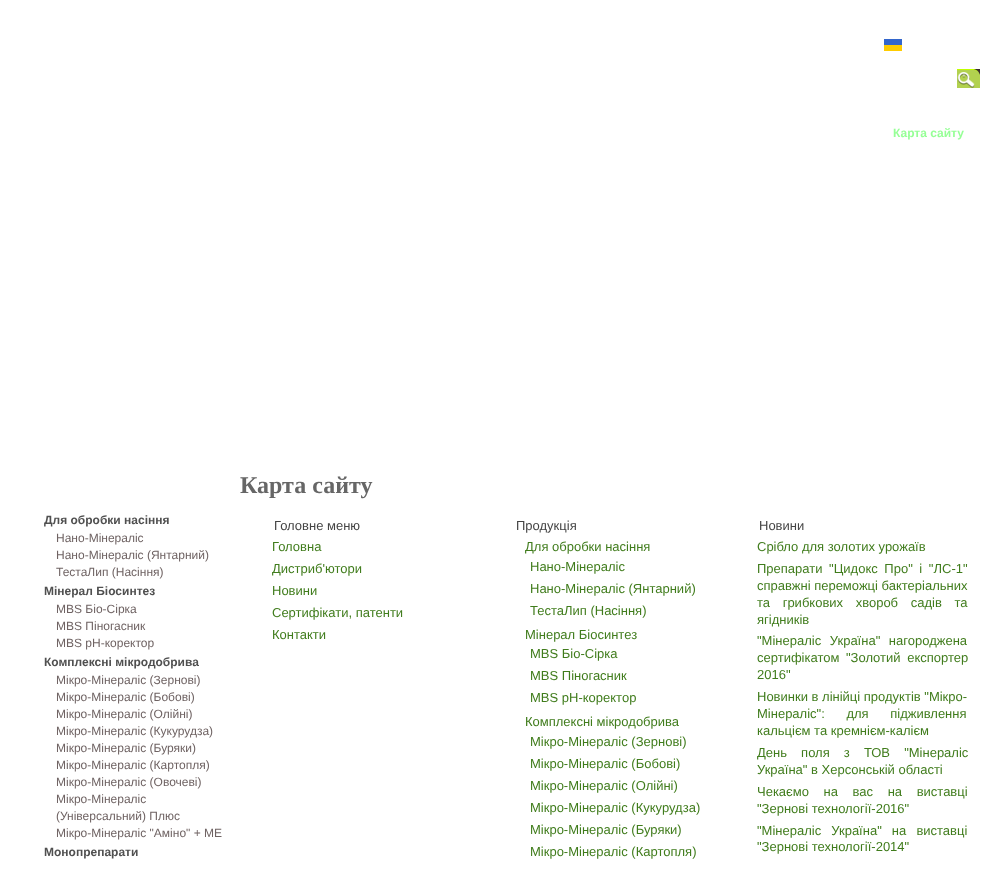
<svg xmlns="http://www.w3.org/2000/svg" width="999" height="869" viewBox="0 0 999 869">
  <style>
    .t1 { font: bold 12px Liberation Sans; fill: #96ff96; }
    .t2 { font: bold 12px Liberation Sans; fill: #505050; }
    .t3 { font: 12px Liberation Sans; fill: #6f6363; }
    .t4 { font: bold 24px Liberation Serif; fill: #666; }
    .t5 { font: 13px Liberation Sans; fill: #444; }
    .t6 { font: 13px Liberation Sans; fill: #407c1c; }
  </style>
  <rect width="100%" height="100%" fill="#fff"/>
  <image x="884" y="39" width="18" height="12" href="images/1.png"/>
  <image x="957" y="69" width="23" height="19" href="images/2.png"/>
  <text x="893" y="137" class="t1">Карта сайту</text>
  <text x="44" y="524" class="t2">Для обробки насіння</text>
  <text x="56" y="542" class="t3">Нано-Мінераліс</text>
  <text x="56" y="559" class="t3">Нано-Мінераліс (Янтарний)</text>
  <text x="56" y="576" class="t3">ТестаЛип (Насіння)</text>
  <text x="44" y="595" class="t2">Мінерал Біосинтез</text>
  <text x="56" y="613" class="t3">MBS Біо-Сірка</text>
  <text x="56" y="630" class="t3">MBS Піногасник</text>
  <text x="56" y="647" class="t3">MBS pH-коректор</text>
  <text x="44" y="666" class="t2">Комплексні мікродобрива</text>
  <text x="56" y="684" class="t3">Мікро-Мінераліс (Зернові)</text>
  <text x="56" y="701" class="t3">Мікро-Мінераліс (Бобові)</text>
  <text x="56" y="718" class="t3">Мікро-Мінераліс (Олійні)</text>
  <text x="56" y="735" class="t3">Мікро-Мінераліс (Кукурудза)</text>
  <text x="56" y="752" class="t3">Мікро-Мінераліс (Буряки)</text>
  <text x="56" y="769" class="t3">Мікро-Мінераліс (Картопля)</text>
  <text x="56" y="786" class="t3">Мікро-Мінераліс (Овочеві)</text>
  <text x="56" y="803" class="t3">Мікро-Мінераліс</text>
  <text x="56" y="820" class="t3">(Універсальний) Плюс</text>
  <text x="56" y="837" class="t3">Мікро-Мінераліс "Аміно" + МЕ</text>
  <text x="44" y="856" class="t2">Монопрепарати</text>
  <text x="240" y="493" class="t4">Карта сайту</text>
  <text x="274" y="530" class="t5">Головне меню</text>
  <text x="272" y="551" class="t6">Головна</text>
  <text x="272" y="573" class="t6">Дистриб'ютори</text>
  <text x="272" y="595" class="t6">Новини</text>
  <text x="272" y="617" class="t6">Сертифікати, патенти</text>
  <text x="272" y="639" class="t6">Контакти</text>
  <text x="516" y="530" class="t5">Продукція</text>
  <text x="525" y="551" class="t6">Для обробки насіння</text>
  <text x="530" y="571" class="t6">Нано-Мінераліс</text>
  <text x="530" y="593" class="t6">Нано-Мінераліс (Янтарний)</text>
  <text x="530" y="615" class="t6">ТестаЛип (Насіння)</text>
  <text x="525" y="639" class="t6">Мінерал Біосинтез</text>
  <text x="530" y="658" class="t6">MBS Біо-Сірка</text>
  <text x="530" y="680" class="t6">MBS Піногасник</text>
  <text x="530" y="702" class="t6">MBS pH-коректор</text>
  <text x="525" y="726" class="t6">Комплексні мікродобрива</text>
  <text x="530" y="746" class="t6">Мікро-Мінераліс (Зернові)</text>
  <text x="530" y="768" class="t6">Мікро-Мінераліс (Бобові)</text>
  <text x="530" y="790" class="t6">Мікро-Мінераліс (Олійні)</text>
  <text x="530" y="812" class="t6">Мікро-Мінераліс (Кукурудза)</text>
  <text x="530" y="834" class="t6">Мікро-Мінераліс (Буряки)</text>
  <text x="530" y="856" class="t6">Мікро-Мінераліс (Картопля)</text>
  <text x="759" y="530" class="t5">Новини</text>
  <text x="757" y="551" class="t6">Срібло для золотих урожаїв</text>
  <text x="757" y="573" word-spacing="3" class="t6">Препарати "Цидокс Про" і "ЛС-1"</text>
  <text x="757" y="590" class="t6">справжні переможці бактеріальних</text>
  <text x="757" y="607" word-spacing="9" class="t6">та грибкових хвороб садів та</text>
  <text x="757" y="624" class="t6">ягідників</text>
  <text x="757" y="645" word-spacing="5" class="t6">"Мінераліс Україна" нагороджена</text>
  <text x="757" y="662" word-spacing="3" class="t6">сертифікатом "Золотий експортер</text>
  <text x="757" y="679" class="t6">2016"</text>
  <text x="757" y="701" class="t6">Новинки в лінійці продуктів "Мікро-</text>
  <text x="757" y="718" word-spacing="18" class="t6">Мінераліс": для підживлення</text>
  <text x="757" y="735" class="t6">кальцієм та кремнієм-калієм</text>
  <text x="757" y="757" word-spacing="10.5" class="t6">День поля з ТОВ "Мінераліс</text>
  <text x="757" y="774" class="t6">Україна" в Херсонській області</text>
  <text x="757" y="796" word-spacing="11" class="t6">Чекаємо на вас на виставці</text>
  <text x="757" y="813" class="t6">"Зернові технології-2016"</text>
  <text x="757" y="835" word-spacing="6.5" class="t6">"Мінераліс Україна" на виставці</text>
  <text x="757" y="851" class="t6">"Зернові технології-2014"</text>
</svg>
